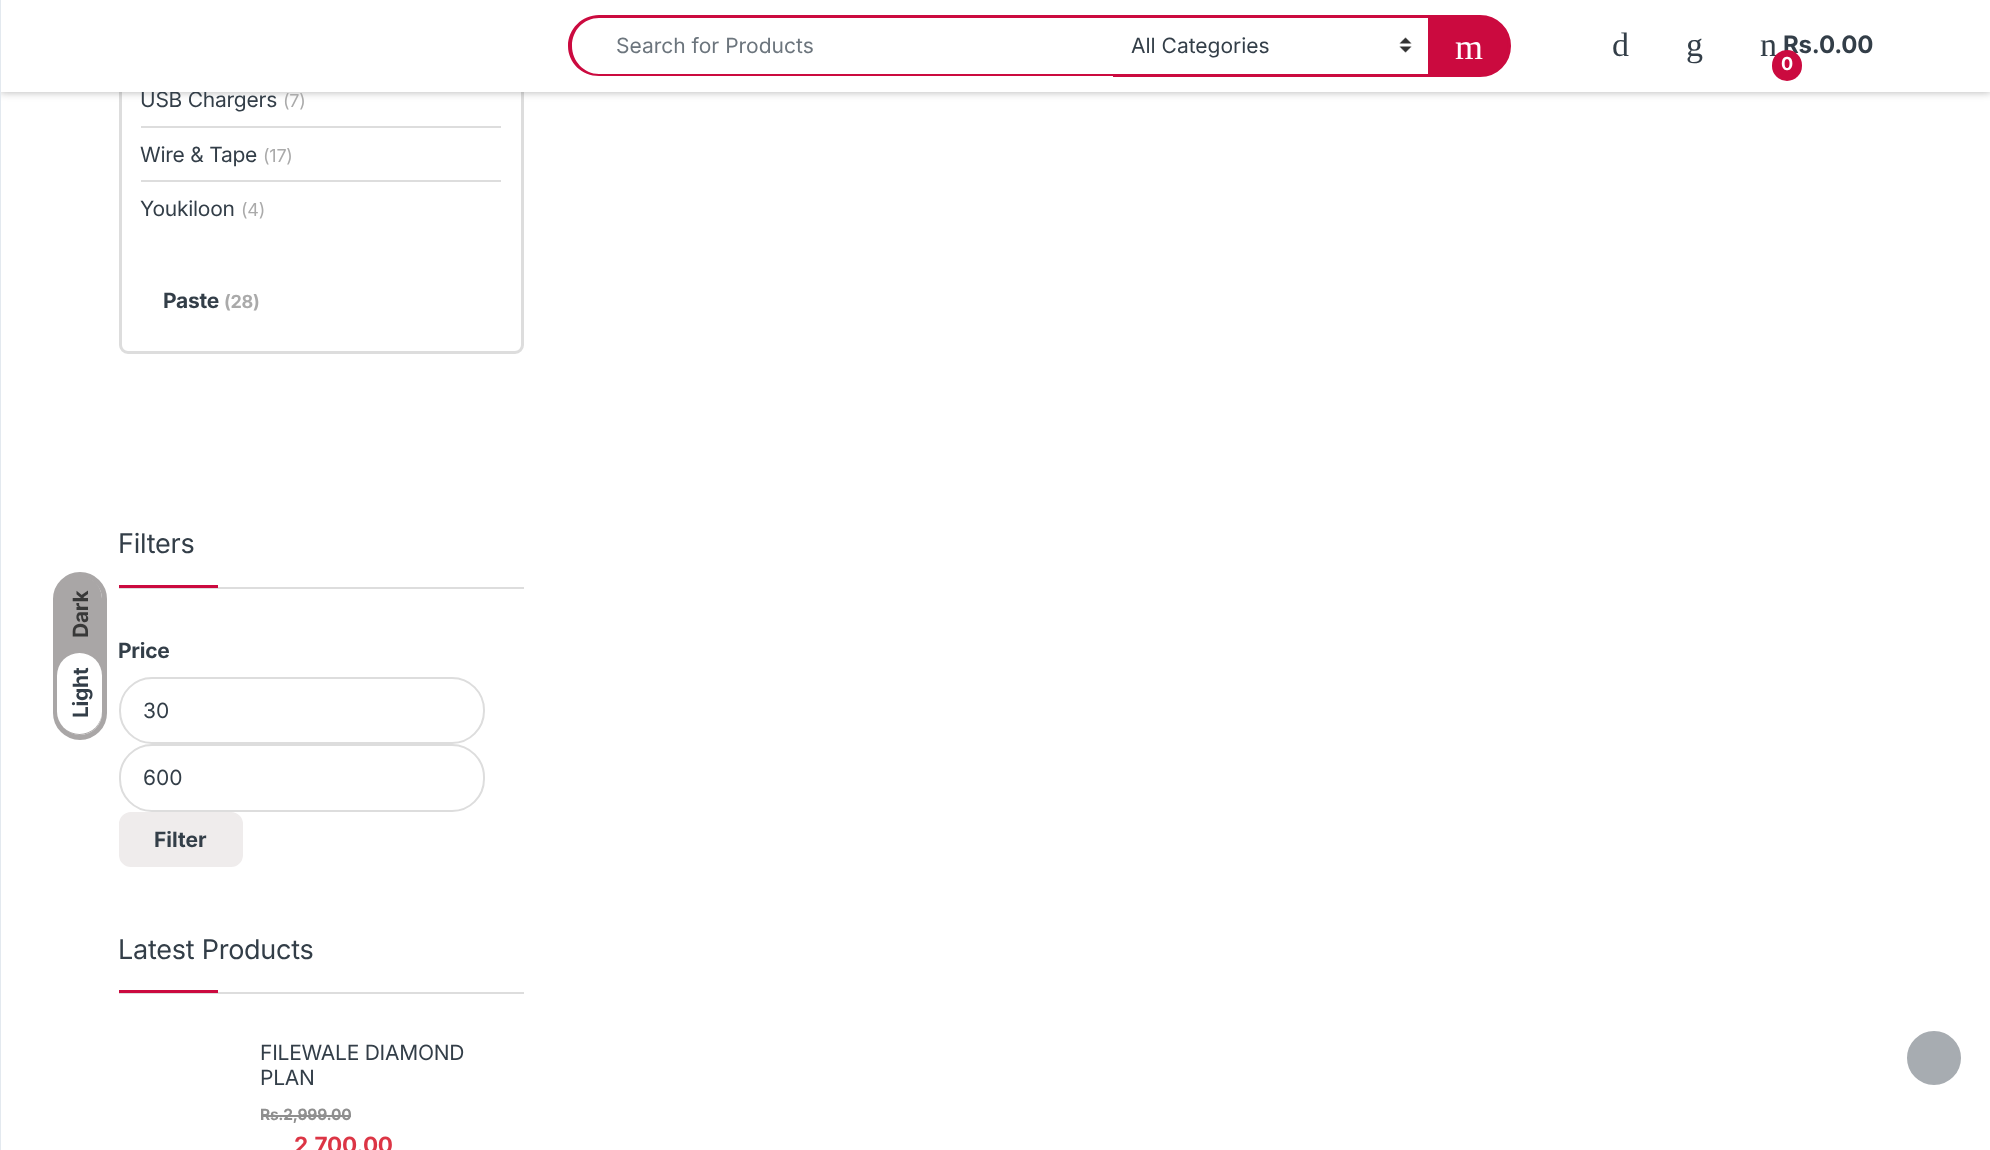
<svg xmlns="http://www.w3.org/2000/svg" width="1990" height="1150" viewBox="0 0 1990 1150">
  <style>
    .t1 { font: bold 21px Inter; letter-spacing: -0.25px; fill: #383838; }
    .t2 { font: bold 21px Inter; letter-spacing: -0.25px; fill: #333e48; }
    .t3 { font: 21px Inter; letter-spacing: -0.25px; fill: #333e48; }
    .t4 { font: 21px Inter; fill: #6c757d; }
    .t5 { font: 21px Inter; fill: #333e48; }
    .t6 { font: 36px Liberation Serif; fill: #fff; }
    .t7 { font: 34px Liberation Serif; letter-spacing: -0.25px; fill: #333e48; }
    .t8 { font: bold 24px Inter; letter-spacing: -0.25px; fill: #333e48; }
    .t9 { font: bold 18px Inter; letter-spacing: -0.25px; fill: #fff; }
    .t10 { font: 18px Inter; letter-spacing: -0.25px; fill: #aaa; }
    .t11 { font: bold 18px Inter; letter-spacing: -0.25px; fill: #aaa; }
    .t12 { font: 27px Inter; letter-spacing: -0.25px; fill: #333e48; }
    .t13 { font: bold 21px Inter; fill: #333e48; }
    .t14 { font: bold 15.5px Inter; letter-spacing: -0.25px; fill: #8f8f8f; }
    .t15 { font: bold 22.5px Inter; letter-spacing: -0.25px; fill: #dc3545; }
  </style>
  <rect width="100%" height="100%" fill="#fff"/>
  <rect x="55.5" y="574.5" width="49" height="163" rx="24.5" fill="none" stroke="#a9a6a6" stroke-width="5"/>
  <rect x="57" y="576" width="45" height="159" rx="22.5" fill="#a9a6a6"/>
  <text x="88" y="638" transform="rotate(-90 88 638)" class="t1">Dark</text>
  <rect x="57" y="653" width="45" height="81" rx="22.5" fill="#fff"/>
  <text x="88" y="718" transform="rotate(-90 88 718)" class="t2">Light</text>
  <rect x="120.5" y="-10.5" width="402" height="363" rx="7.5" fill="none" stroke="#ddd" stroke-width="3"/>
  <rect x="0" y="0" width="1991" height="92" fill="#0101014d" filter="blur(4.5px)"/>
  <text x="140" y="107" class="t3">USB Chargers</text>
  <rect x="1" y="0" width="1989" height="92" fill="#fff"/>
  <rect x="0" y="0" width="1" height="1150" fill="#e3e9ef"/>
  <path d="M599 15H1114V76H599C582 76 568 63 568 46C568 29 582 15 599 15ZM599 18H1114V74H599C584 74 572 61 572 46C572 30 584 18 599 18Z" fill="#cb0a3f" fill-rule="evenodd"/>
  <text x="616" y="53" class="t4">Search for Products</text>
  <rect x="1113" y="15" width="317" height="3" fill="#cb0a3f"/>
  <rect x="1113" y="74" width="317" height="3" fill="#cb0a3f"/>
  <image x="1399" y="37" width="13" height="16" href="images/1.png"/>
  <text x="1131" y="53" class="t5">All Categories</text>
  <path d="M1429.5 16.5H1480C1496.5 16.5 1509.5 29.5 1509.5 46C1509.5 62.5 1496.5 75.5 1480 75.5H1429.5Z" fill="#cb0a3f" stroke="#cb0a3f" stroke-width="3"/>
  <text x="1455" y="59" class="t6">m</text>
  <text x="1612" y="56" class="t7">d</text>
  <text x="1686" y="56" class="t7">g</text>
  <text x="1760" y="56" class="t7">n</text>
  <text x="1783" y="53" class="t8">Rs.</text>
  <text x="1819" y="53" class="t8">0.00</text>
  <rect x="1772" y="50" width="30" height="31" rx="15" fill="#cb0a3f"/>
  <text x="1781" y="70" class="t9">0</text>
  <text x="283" y="107" class="t10">(7)</text>
  <rect x="141" y="126" width="360" height="2" fill="#ddd"/>
  <text x="140" y="162" class="t3">Wire &amp; Tape</text>
  <text x="263" y="162" class="t10">(17)</text>
  <rect x="141" y="180" width="360" height="2" fill="#ddd"/>
  <text x="140" y="216" class="t3">Youkiloon</text>
  <text x="241" y="216" class="t10">(4)</text>
  <text x="163" y="308" class="t2">Paste</text>
  <text x="224" y="308" class="t11">(28)</text>
  <rect x="119" y="587" width="405" height="2" fill="#ddd"/>
  <text x="118" y="553" class="t12">Filters</text>
  <rect x="119" y="585" width="99" height="3" fill="#cb0a3f"/>
  <text x="118" y="658" class="t2">Price</text>
  <rect x="120" y="678" width="364" height="65" rx="32" fill="none" stroke="#ddd" stroke-width="2"/>
  <text x="143" y="718" class="t5">30</text>
  <rect x="120" y="745" width="364" height="66" rx="32" fill="none" stroke="#ddd" stroke-width="2"/>
  <text x="143" y="785" class="t5">600</text>
  <rect x="120" y="813" width="122" height="53" rx="11" fill="#efecec" stroke="#efecec" stroke-width="2"/>
  <text x="154" y="847" class="t13">Filter</text>
  <rect x="119" y="992" width="405" height="2" fill="#ddd"/>
  <text x="118" y="959" class="t12">Latest Products</text>
  <rect x="119" y="990" width="99" height="3" fill="#cb0a3f"/>
  <text x="260" y="1060" class="t3">FILEWALE DIAMOND</text>
  <text x="260" y="1085" class="t3">PLAN</text>
  <text x="260" y="1120" class="t14">Rs.2,999.00</text>
  <rect x="261" y="1115" width="90" height="2" fill="#8f8f8f"/>
  <text x="294" y="1153" class="t15">2,700.00</text>
  <circle cx="1934" cy="1058" r="26" fill="#a7acb1" stroke="#a7acb1" stroke-width="2"/>
</svg>
